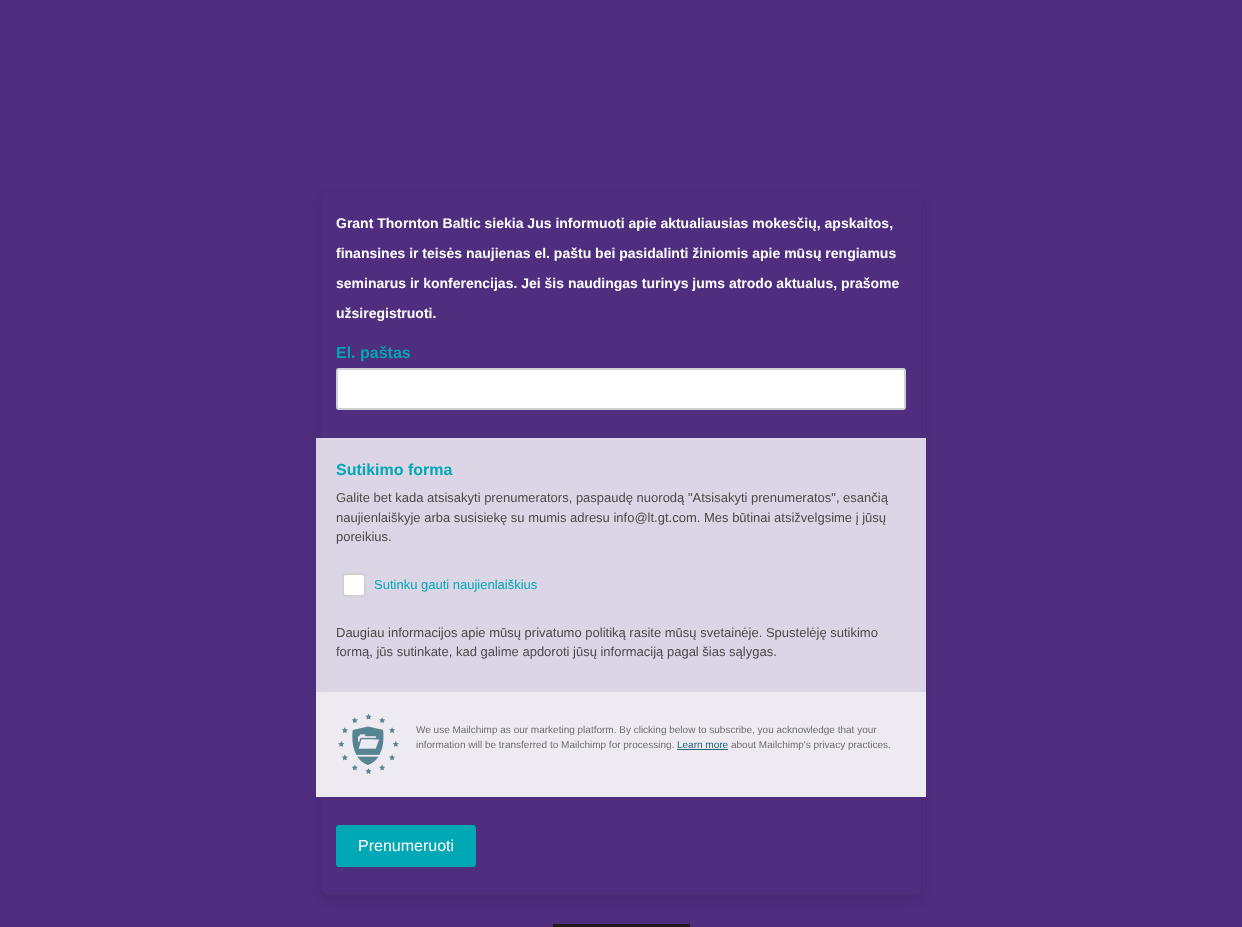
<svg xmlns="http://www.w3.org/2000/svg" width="1242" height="927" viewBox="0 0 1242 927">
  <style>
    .t1 { font: bold 14px Liberation Sans; fill: #fff; }
    .t2 { font: bold 16px Liberation Sans; fill: #00a7b5; }
    .t3 { font: 13px Liberation Sans; fill: #4a4a4a; }
    .t4 { font: 13px Liberation Sans; fill: #00a7b5; }
    .t5 { font: 10px Liberation Sans; fill: #6d6d6d; }
    .t6 { font: 10px Liberation Sans; fill: #206578; }
    .t7 { font: 16px Liberation Sans; fill: #fff; }
  </style>
  <rect width="100%" height="100%" fill="#4f2d7f"/>
  <rect x="321" y="198" width="600" height="702" rx="6" fill="#0d12161f" filter="blur(6px)"/>
  <rect x="321" y="192" width="600" height="702" rx="6" fill="#4f2d7f"/>
  <text x="336" y="228" class="t1">Grant Thornton Baltic siekia Jus informuoti apie aktualiausias mokesčių, apskaitos,</text>
  <text x="336" y="258" class="t1">finansines ir teisės naujienas el. paštu bei pasidalinti žiniomis apie mūsų rengiamus</text>
  <text x="336" y="288" class="t1">seminarus ir konferencijas. Jei šis naudingas turinys jums atrodo aktualus, prašome</text>
  <text x="336" y="318" class="t1">užsiregistruoti.</text>
  <text x="336" y="358" class="t2">El. paštas</text>
  <rect x="337" y="369" width="568" height="40" rx="2" fill="#fff" stroke="#d0d0d0" stroke-width="2"/>
  <rect x="316" y="438" width="610" height="254" fill="#ffffffcc"/>
  <text x="336" y="475" class="t2">Sutikimo forma</text>
  <text x="336" y="502" class="t3">Galite bet kada atsisakyti prenumerators, paspaudę nuorodą "Atsisakyti prenumeratos", esančią</text>
  <text x="336" y="522" class="t3">naujienlaiškyje arba susisiekę su mumis adresu info@lt.gt.com. Mes būtinai atsižvelgsime į jūsų</text>
  <text x="336" y="541" class="t3">poreikius.</text>
  <image x="342" y="573" width="24" height="24" href="images/1.png"/>
  <text x="374" y="589" class="t4">Sutinku gauti naujienlaiškius</text>
  <text x="336" y="637" class="t3">Daugiau informacijos apie mūsų privatumo politiką rasite mūsų svetainėje. Spustelėję sutikimo</text>
  <text x="336" y="656" class="t3">formą, jūs sutinkate, kad galime apdoroti jūsų informaciją pagal šias sąlygas.</text>
  <rect x="316" y="692" width="610" height="105" fill="#ffffffe6"/>
  <image x="338" y="713" width="61" height="61" href="images/2.png"/>
  <text x="416" y="733" class="t5">We use Mailchimp as our marketing platform. By clicking below to subscribe, you acknowledge that your</text>
  <text x="416" y="748" class="t5">information will be transferred to Mailchimp for processing.</text>
  <text x="677" y="748" class="t6">Learn more</text>
  <rect x="677" y="749" width="51" height="1" fill="#206578"/>
  <text x="731" y="748" class="t5">about Mailchimp's privacy practices.</text>
  <rect x="336" y="825" width="140" height="42" rx="3" fill="#00a7b5"/>
  <text x="358" y="851" class="t7">Prenumeruoti</text>
  <rect x="553" y="924" width="137" height="3" fill="#231a14"/>
</svg>
